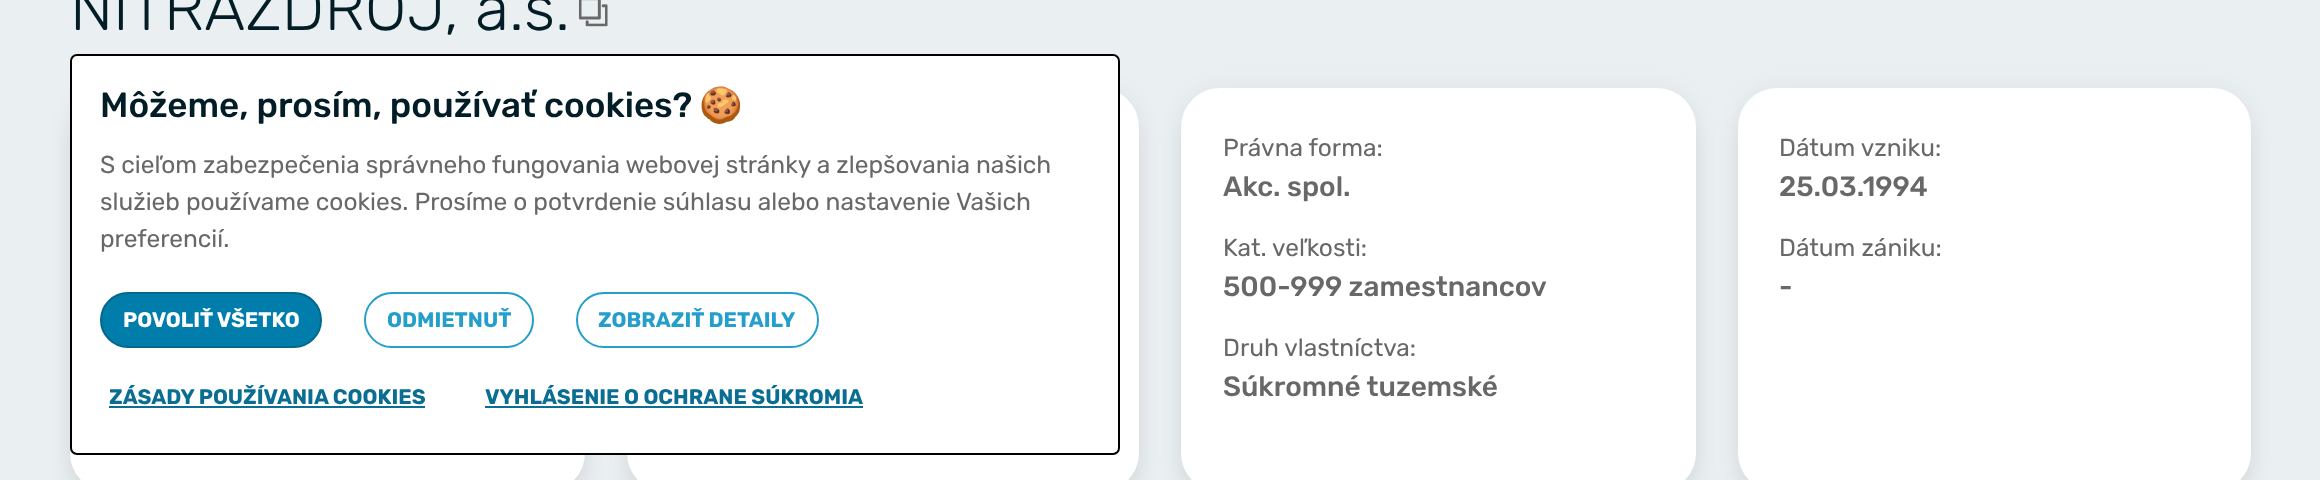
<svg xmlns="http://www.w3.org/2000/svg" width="2320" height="480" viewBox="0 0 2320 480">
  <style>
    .t1 { font: 300 63px Rubik; fill: #031d26; }
    .t2 { font: 24.5px Rubik; fill: #686868; }
    .t3 { font: 500 28px Rubik; fill: #686868; }
    .t4 { font: 500 35px Rubik; fill: #031d26; }
    .t5 { font: 35px Noto Color Emoji; fill: #031d26; }
    .t6 { font: bold 21px Rubik; fill: #fff; }
    .t7 { font: bold 21px Rubik; fill: #249fcb; }
    .t8 { font: bold 21px Rubik; fill: #0a6e92; }
  </style>
  <rect width="100%" height="100%" fill="#eaf0f2"/>
  <text x="70" y="30" class="t1">NITRAZDROJ, a.s.</text>
  <image x="578" y="0" width="30" height="27" href="images/1.png"/>
  <rect x="70" y="88" width="515" height="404" rx="39" fill="#0000000d" filter="blur(10.5px)"/>
  <rect x="70" y="109" width="515" height="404" rx="39" fill="#0000000d" filter="blur(10.5px)"/>
  <rect x="70" y="88" width="515" height="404" rx="39" fill="#fff"/>
  <rect x="627" y="88" width="512" height="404" rx="39" fill="#0000000d" filter="blur(10.5px)"/>
  <rect x="627" y="109" width="512" height="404" rx="39" fill="#0000000d" filter="blur(10.5px)"/>
  <rect x="627" y="88" width="512" height="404" rx="39" fill="#fff"/>
  <rect x="1181" y="88" width="515" height="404" rx="39" fill="#0000000d" filter="blur(10.5px)"/>
  <rect x="1181" y="109" width="515" height="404" rx="39" fill="#0000000d" filter="blur(10.5px)"/>
  <rect x="1181" y="88" width="515" height="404" rx="39" fill="#fff"/>
  <text x="1223" y="156" class="t2">Právna forma:</text>
  <text x="1223" y="196" class="t3">Akc. spol.</text>
  <text x="1223" y="256" class="t2">Kat. veľkosti:</text>
  <text x="1223" y="296" class="t3">500-999 zamestnancov</text>
  <text x="1223" y="356" class="t2">Druh vlastníctva:</text>
  <text x="1223" y="396" class="t3">Súkromné tuzemské</text>
  <rect x="1738" y="88" width="513" height="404" rx="39" fill="#0000000d" filter="blur(10.5px)"/>
  <rect x="1738" y="109" width="513" height="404" rx="39" fill="#0000000d" filter="blur(10.5px)"/>
  <rect x="1738" y="88" width="513" height="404" rx="39" fill="#fff"/>
  <text x="1779" y="156" class="t2">Dátum vzniku:</text>
  <text x="1779" y="196" class="t3">25.03.1994</text>
  <text x="1779" y="256" class="t2">Dátum zániku:</text>
  <text x="1779" y="296" class="t3">-</text>
  <rect x="71" y="55" width="1048" height="399" rx="6" fill="#fff" stroke="#000" stroke-width="2"/>
  <text x="100" y="117" class="t4">Môžeme, prosím, používať cookies?</text>
  <text x="699" y="117" class="t5">🍪</text>
  <text x="100" y="173" class="t2">S cieľom zabezpečenia správneho fungovania webovej stránky a zlepšovania našich</text>
  <text x="100" y="210" class="t2">služieb používame cookies. Prosíme o potvrdenie súhlasu alebo nastavenie Vašich</text>
  <text x="100" y="247" class="t2">preferencií.</text>
  <rect x="101" y="293" width="220" height="54" rx="27" fill="#007daa" stroke="#00688d" stroke-width="2"/>
  <text x="123" y="327" class="t6">POVOLIŤ VŠETKO</text>
  <rect x="365" y="293" width="168" height="54" rx="27" fill="none" stroke="#249fcb" stroke-width="2"/>
  <text x="387" y="327" class="t7">ODMIETNUŤ</text>
  <rect x="577" y="293" width="241" height="54" rx="27" fill="none" stroke="#249fcb" stroke-width="2"/>
  <text x="598" y="327" class="t7">ZOBRAZIŤ DETAILY</text>
  <text x="109" y="404" class="t8">ZÁSADY POUŽÍVANIA COOKIES</text>
  <rect x="109" y="406" width="316" height="2" fill="#0a6e92"/>
  <text x="485" y="404" class="t8">VYHLÁSENIE O OCHRANE SÚKROMIA</text>
  <rect x="485" y="406" width="378" height="2" fill="#0a6e92"/>
</svg>
